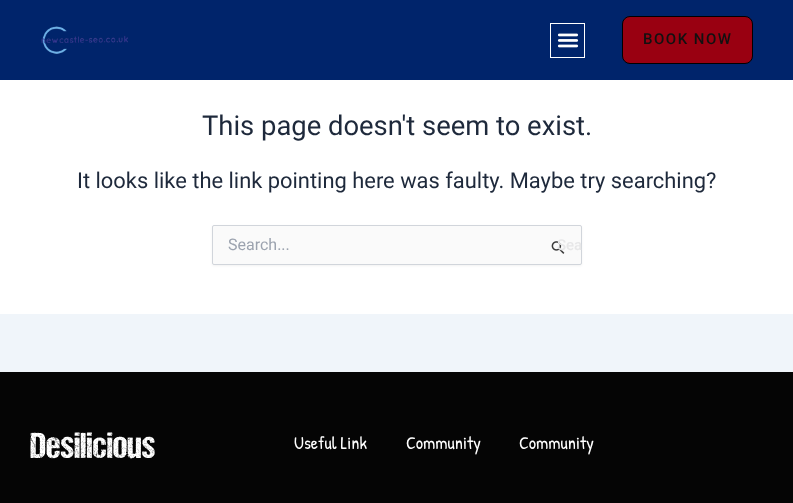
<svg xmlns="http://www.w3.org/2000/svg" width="793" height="503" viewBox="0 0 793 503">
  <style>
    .t1 { font: 500 15px Roboto; letter-spacing: 1.5px; fill: #111; }
    .t2 { font: 27.4px Roboto; fill: #1e293b; }
    .t3 { font: 21.9px Roboto; fill: #1e293b; }
    .t4 { font: 16px Roboto; fill: #9ca3af; }
    .t5 { font: 500 15px Roboto; fill: #e7e7e8; }
    .t6 { font: 18px Patrick Hand; fill: #fff; }
  </style>
  <rect width="100%" height="100%" fill="#f0f5fa"/>
  <rect x="0" y="0" width="793" height="80" fill="#00246b"/>
  <image x="41" y="26" width="87" height="28" href="images/1.png"/>
  <rect x="550.5" y="23.5" width="34" height="34" fill="none" stroke="#fff"/>
  <image x="557" y="33" width="22" height="15" href="images/2.png"/>
  <rect x="622.5" y="16.5" width="130" height="47" rx="7.5" fill="#901" stroke="#000"/>
  <text x="643" y="44" class="t1">BOOK NOW</text>
  <rect x="0" y="80" width="793" height="234" fill="#fff"/>
  <text x="202" y="135" class="t2">This page doesn't seem to exist.</text>
  <text x="77" y="188" class="t3">It looks like the link pointing here was faulty. Maybe try searching?</text>
  <rect x="212" y="226" width="370" height="40" rx="2" fill="#0000000d" filter="blur(1px)"/>
  <rect x="212.5" y="225.5" width="369" height="39" rx="1.5" fill="#fafafa" stroke="#d1d5db"/>
  <text x="228" y="250" class="t4">Search...</text>
  <image x="551" y="241" width="14" height="13" href="images/3.png"/>
  <text x="557" y="250" class="t5">Sea</text>
  <rect x="0" y="372" width="793" height="131" fill="#050505"/>
  <image x="30" y="432" width="125" height="27" href="images/4.png"/>
  <text x="294" y="449" class="t6">Useful Link</text>
  <text x="406" y="449" class="t6">Community</text>
  <text x="519" y="449" class="t6">Community</text>
</svg>
